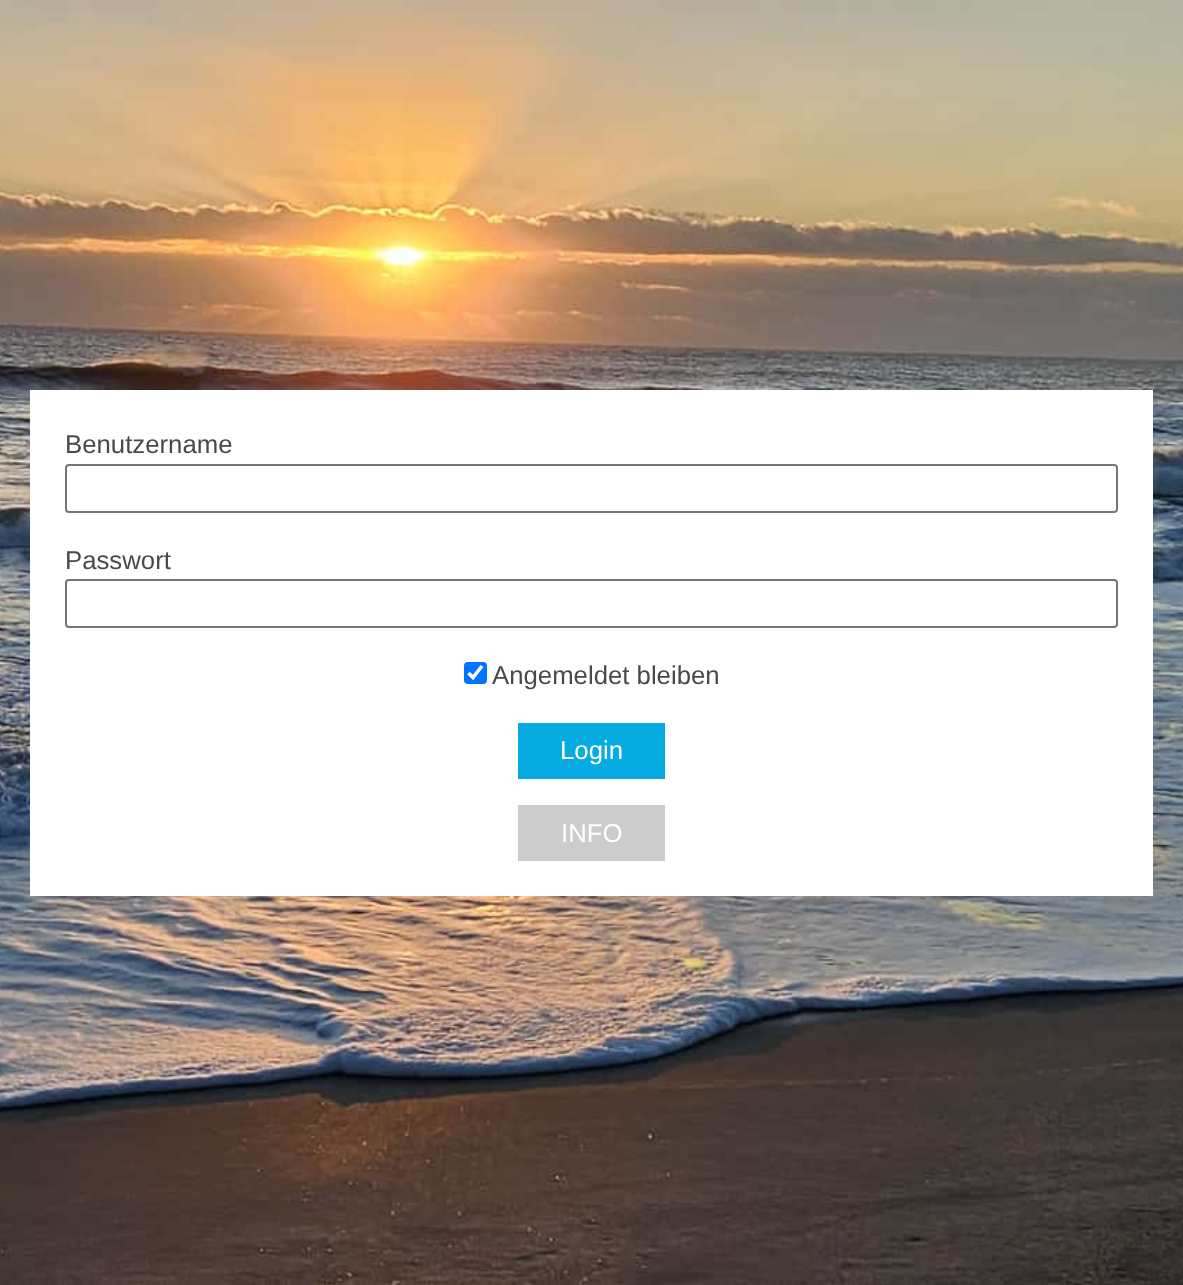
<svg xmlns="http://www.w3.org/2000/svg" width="1183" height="1285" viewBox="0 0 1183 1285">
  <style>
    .t1 { font: 25.75px Liberation Sans; fill: #494949; }
    .t2 { font: 25.75px Liberation Sans; fill: #fff; }
  </style>
  <rect width="100%" height="100%" fill="#fff"/>
  <image x="0" y="0" width="1183" height="1285" href="images/1.png"/>
  <rect x="30" y="390" width="1123" height="506" fill="#fff"/>
  <text x="65" y="453" class="t1">Benutzername</text>
  <rect x="66" y="465" width="1051" height="47" rx="3" fill="none" stroke="#767676" stroke-width="2"/>
  <text x="65" y="569" class="t1">Passwort</text>
  <rect x="66" y="580" width="1051" height="47" rx="3" fill="none" stroke="#767676" stroke-width="2"/>
  <rect x="464" y="662" width="23" height="22" rx="4" fill="#0075ff"/>
  <path d="M468.5 673L473 677.5L482 666" fill="none" stroke="#fff" stroke-width="3.6"/>
  <text x="492" y="684" class="t1">Angemeldet bleiben</text>
  <rect x="518" y="723" width="147" height="56" fill="#06abe2"/>
  <text x="560" y="759" class="t2">Login</text>
  <rect x="518" y="805" width="147" height="56" fill="#ccc"/>
  <text x="561" y="842" class="t2">INFO</text>
</svg>
